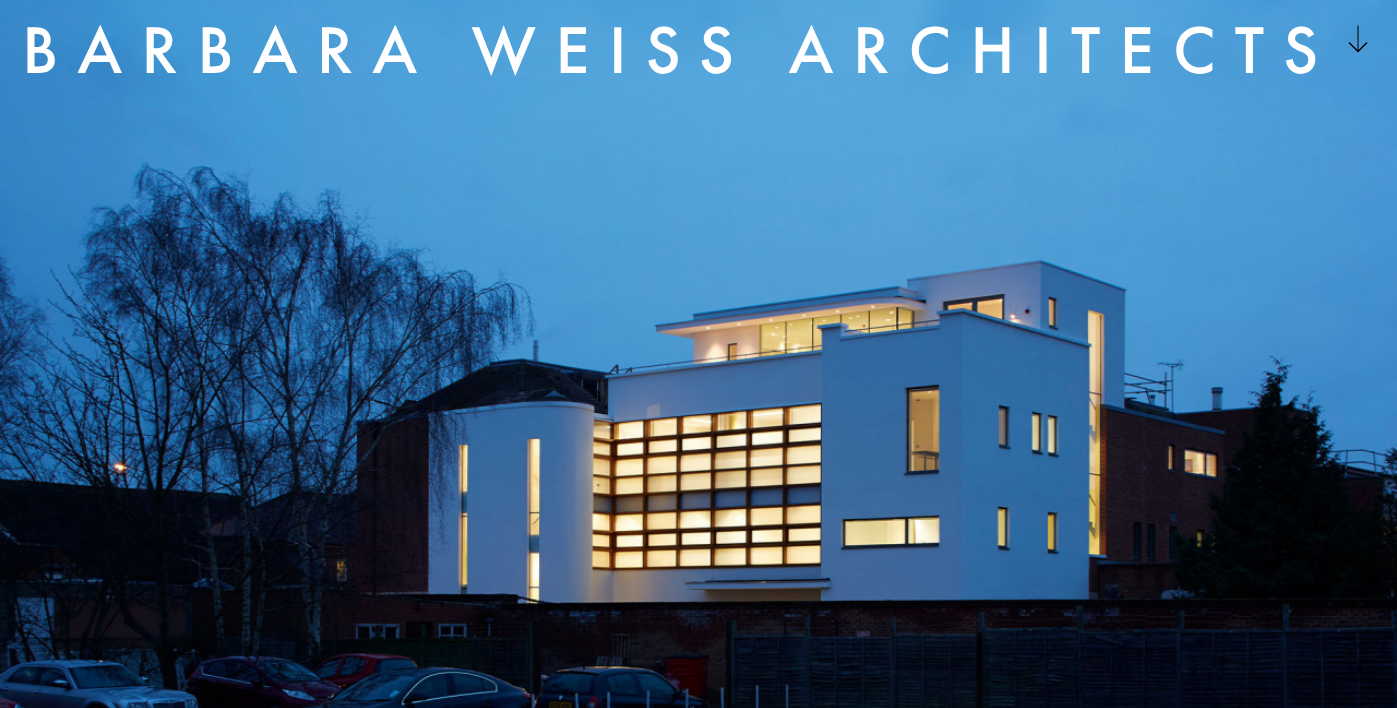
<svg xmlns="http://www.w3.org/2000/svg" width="1397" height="708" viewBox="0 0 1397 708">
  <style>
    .t1 { font: 500 68.5px Futura PT; letter-spacing: 19.2px; fill: #fff; }
  </style>
  <rect width="100%" height="100%" fill="#fff"/>
  <image x="0" y="0" width="1397" height="708" href="images/1.png"/>
  <text x="22" y="73" class="t1">BARBARA WEISS ARCHITECTS</text>
  <path d="M1367.5 43L1366.5 42L1358.5 50V25.5H1357.5V50L1349.5 42L1348.5 43L1358 52.5Z" fill="#000"/>
</svg>
